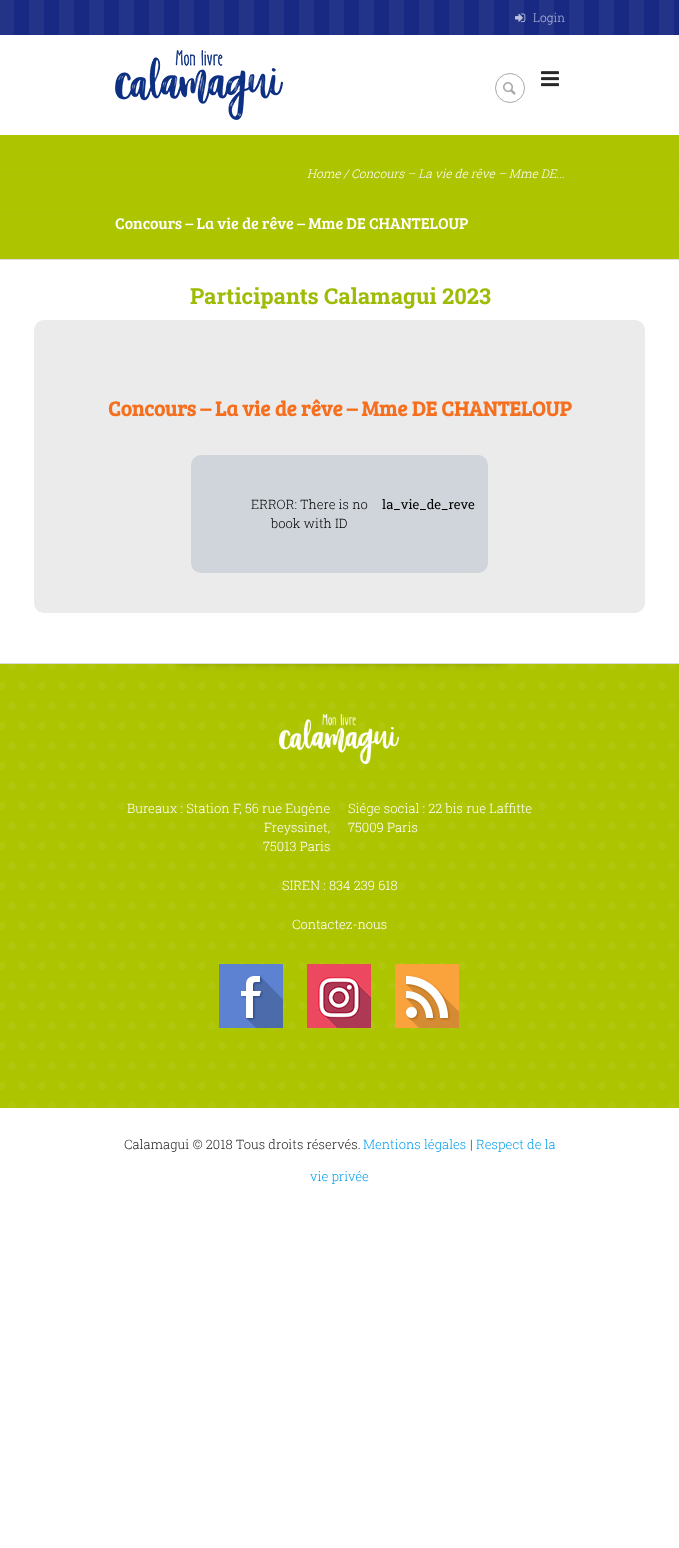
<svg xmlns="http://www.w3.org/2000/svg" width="679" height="1548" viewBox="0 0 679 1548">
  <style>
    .t1 { font: 300 12px Roboto Slab; fill: #bbc0da; }
    .t2 { font: italic 300 12px Roboto Slab; fill: #fff; }
    .t3 { font: 16px Bree Serif; fill: #fff; }
    .t4 { font: bold 22px Roboto Slab; fill: #9ebb06; }
    .t5 { font: bold 21px Bree Serif; fill: #f56f1f; }
    .t6 { font: 300 13px Roboto Slab; fill: #000; }
    .t7 { font: 13px Roboto Slab; fill: #000; }
    .t8 { font: 300 13px Roboto Slab; fill: #fff; }
    .t9 { font: 300 13px Roboto Slab; fill: #222; }
    .t10 { font: 300 13px Roboto Slab; fill: #069eed; }
  </style>
  <defs>
    <clipPath id="clip1"><rect x="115" y="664" width="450" height="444"/></clipPath>
  </defs>
  <rect width="100%" height="100%" fill="#fff"/>
  <rect x="0" y="0" width="679" height="35" fill="#172982"/>
  <image x="0" y="0" width="674" height="35" href="images/1.png"/>
  <image x="515" y="13" width="11" height="10" href="images/2.png"/>
  <text x="533" y="22" class="t1">Login</text>
  <image x="115" y="50" width="168" height="70" href="images/3.png"/>
  <circle cx="510" cy="88" r="14.5" fill="none" stroke="#a9a9a9"/>
  <image x="503" y="82" width="13" height="13" href="images/4.png"/>
  <image x="541" y="71" width="18" height="16" href="images/5.png"/>
  <rect x="0" y="135" width="679" height="124" fill="#adc400"/>
  <image x="0" y="154" width="679" height="101" href="images/6.png"/>
  <rect x="0" y="259" width="679" height="1" fill="#ddd"/>
  <text x="307" y="178" class="t2">Home / Concours – La vie de rêve – Mme DE...</text>
  <text x="115" y="229" class="t3">Concours – La vie de rêve – Mme DE CHANTELOUP</text>
  <text x="190" y="304" class="t4">Participants Calamagui 2023</text>
  <rect x="34" y="320" width="611" height="293" rx="10" fill="#ebebeb"/>
  <text x="108" y="416" class="t5">Concours – La vie de rêve – Mme DE CHANTELOUP</text>
  <rect x="191" y="455" width="297" height="118" rx="10" fill="#d0d5db"/>
  <text x="251" y="509" class="t6">ERROR: There is no</text>
  <text x="382" y="509" class="t7">la_vie_de_reve</text>
  <text x="271" y="528" class="t6">book with ID</text>
  <rect x="0" y="664" width="679" height="444" fill="#adc400"/>
  <image x="0" y="664" width="679" height="444" href="images/7.png"/>
  <rect x="0" y="663" width="679" height="1" fill="#ddd"/>
  <g clip-path="url(#clip1)">
    <rect x="175" y="642" width="330" height="20" rx="10" fill="#0000004d" filter="blur(5px)"/>
  </g>
  <image x="279" y="714" width="120" height="50" href="images/8.png"/>
  <text x="127" y="813" class="t8">Bureaux : Station F, 56 rue Eugène</text>
  <text x="264" y="832" class="t8">Freyssinet,</text>
  <text x="263" y="851" class="t8">75013 Paris</text>
  <text x="348" y="813" class="t8">Siége social : 22 bis rue Laffitte</text>
  <text x="348" y="832" class="t8">75009 Paris</text>
  <text x="282" y="890" class="t8">SIREN : 834 239 618</text>
  <text x="292" y="929" class="t8">Contactez-nous</text>
  <image x="219" y="964" width="64" height="64" href="images/9.png"/>
  <image x="307" y="964" width="64" height="64" href="images/10.png"/>
  <image x="395" y="964" width="64" height="64" href="images/11.png"/>
  <text x="124" y="1149" class="t9">Calamagui © 2018 Tous droits réservés.</text>
  <text x="363" y="1149" class="t10">Mentions légales</text>
  <text x="470" y="1149" class="t9">|</text>
  <text x="476" y="1149" class="t10">Respect de la</text>
  <text x="310" y="1181" class="t10">vie privée</text>
</svg>
